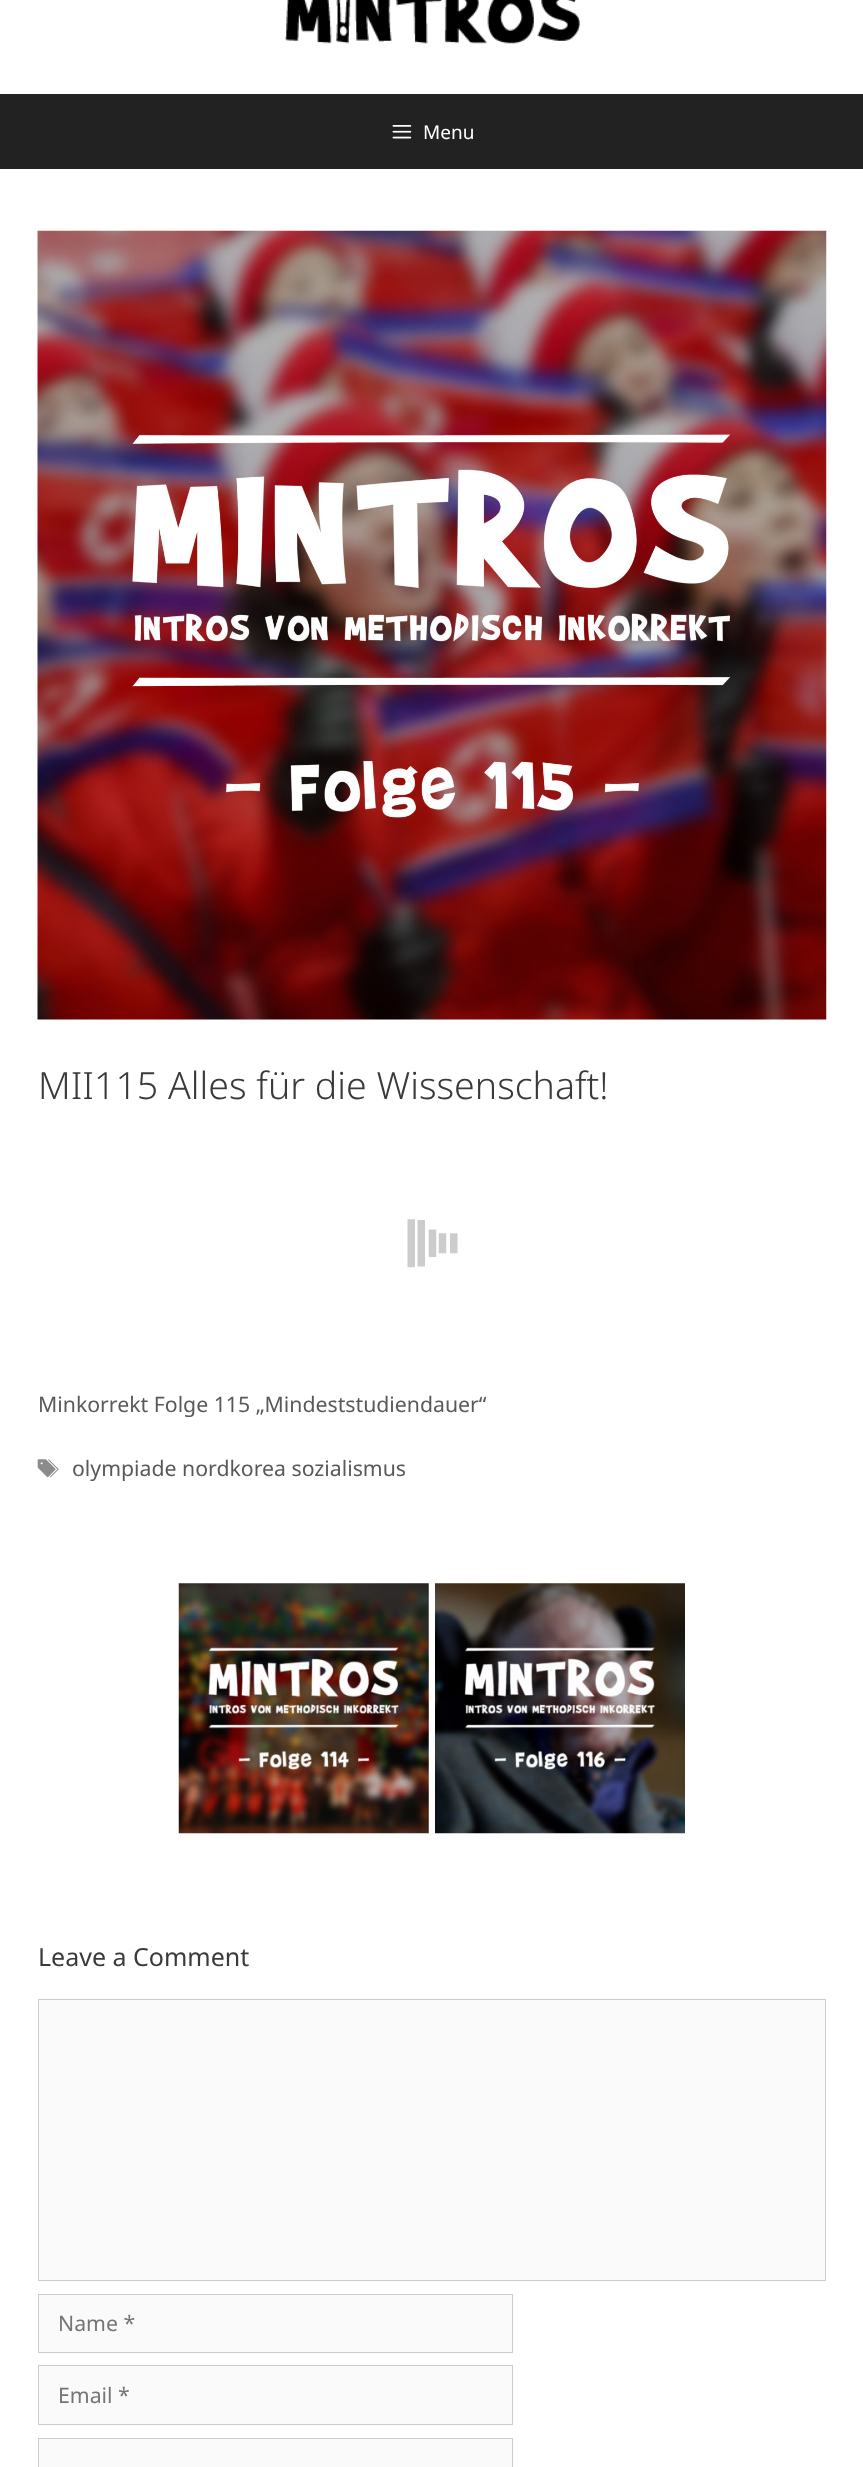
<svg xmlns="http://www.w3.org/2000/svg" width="863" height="2467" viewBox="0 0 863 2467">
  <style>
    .t1 { font: 19px Noto Sans; fill: #fff; }
    .t2 { font: 300 37.5px Noto Sans; fill: #3a3a3a; }
    .t3 { font: 21.25px Noto Sans; fill: #595959; }
    .t4 { font: 25px Noto Sans; fill: #3a3a3a; }
    .t5 { font: 21.25px Noto Sans; fill: #757575; }
  </style>
  <rect width="100%" height="100%" fill="#fff"/>
  <image x="285" y="0" width="295" height="44" href="images/1.png"/>
  <rect x="0" y="94" width="863" height="75" fill="#222"/>
  <image x="392" y="125" width="20" height="14" href="images/2.png"/>
  <text x="423" y="139" class="t1">Menu</text>
  <image x="37" y="230" width="790" height="790" href="images/3.png"/>
  <text x="38" y="1099" class="t2">MII115 Alles für die Wissenschaft!</text>
  <image x="407" y="1219" width="51" height="49" href="images/4.png"/>
  <text x="38" y="1412" class="t3">Minkorrekt Folge 115 „Mindeststudiendauer“</text>
  <image x="37" y="1459" width="22" height="19" href="images/5.png"/>
  <text x="72" y="1476" class="t3">olympiade nordkorea sozialismus</text>
  <image x="178" y="1583" width="251" height="251" href="images/6.png"/>
  <image x="435" y="1583" width="250" height="251" href="images/7.png"/>
  <text x="38" y="1966" class="t4">Leave a Comment</text>
  <rect x="38.5" y="1999.5" width="787" height="281" fill="#fafafa" stroke="#ccc"/>
  <rect x="38.5" y="2294.5" width="474" height="58" fill="#fafafa" stroke="#ccc"/>
  <text x="58" y="2331" class="t5">Name *</text>
  <rect x="38.5" y="2365.5" width="474" height="59" fill="#fafafa" stroke="#ccc"/>
  <text x="58" y="2403" class="t5">Email *</text>
  <rect x="38.5" y="2438.5" width="474" height="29" fill="#fafafa" stroke="#ccc"/>
</svg>
